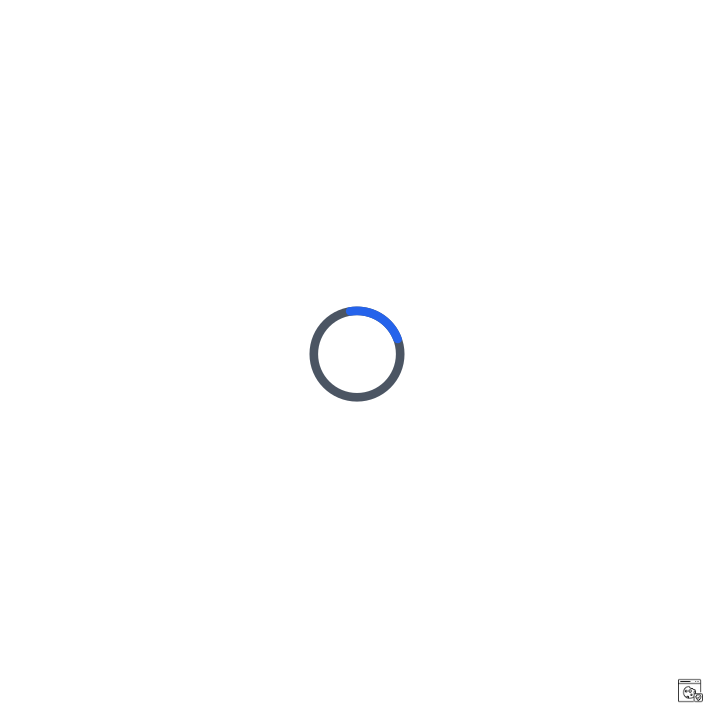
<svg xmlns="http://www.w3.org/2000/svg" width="713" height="707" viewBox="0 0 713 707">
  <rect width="100%" height="100%" fill="#fff"/>
  <image x="309" y="306" width="96" height="96" href="images/1.png"/>
  <image x="678" y="678" width="25" height="25" href="images/2.png"/>
</svg>
